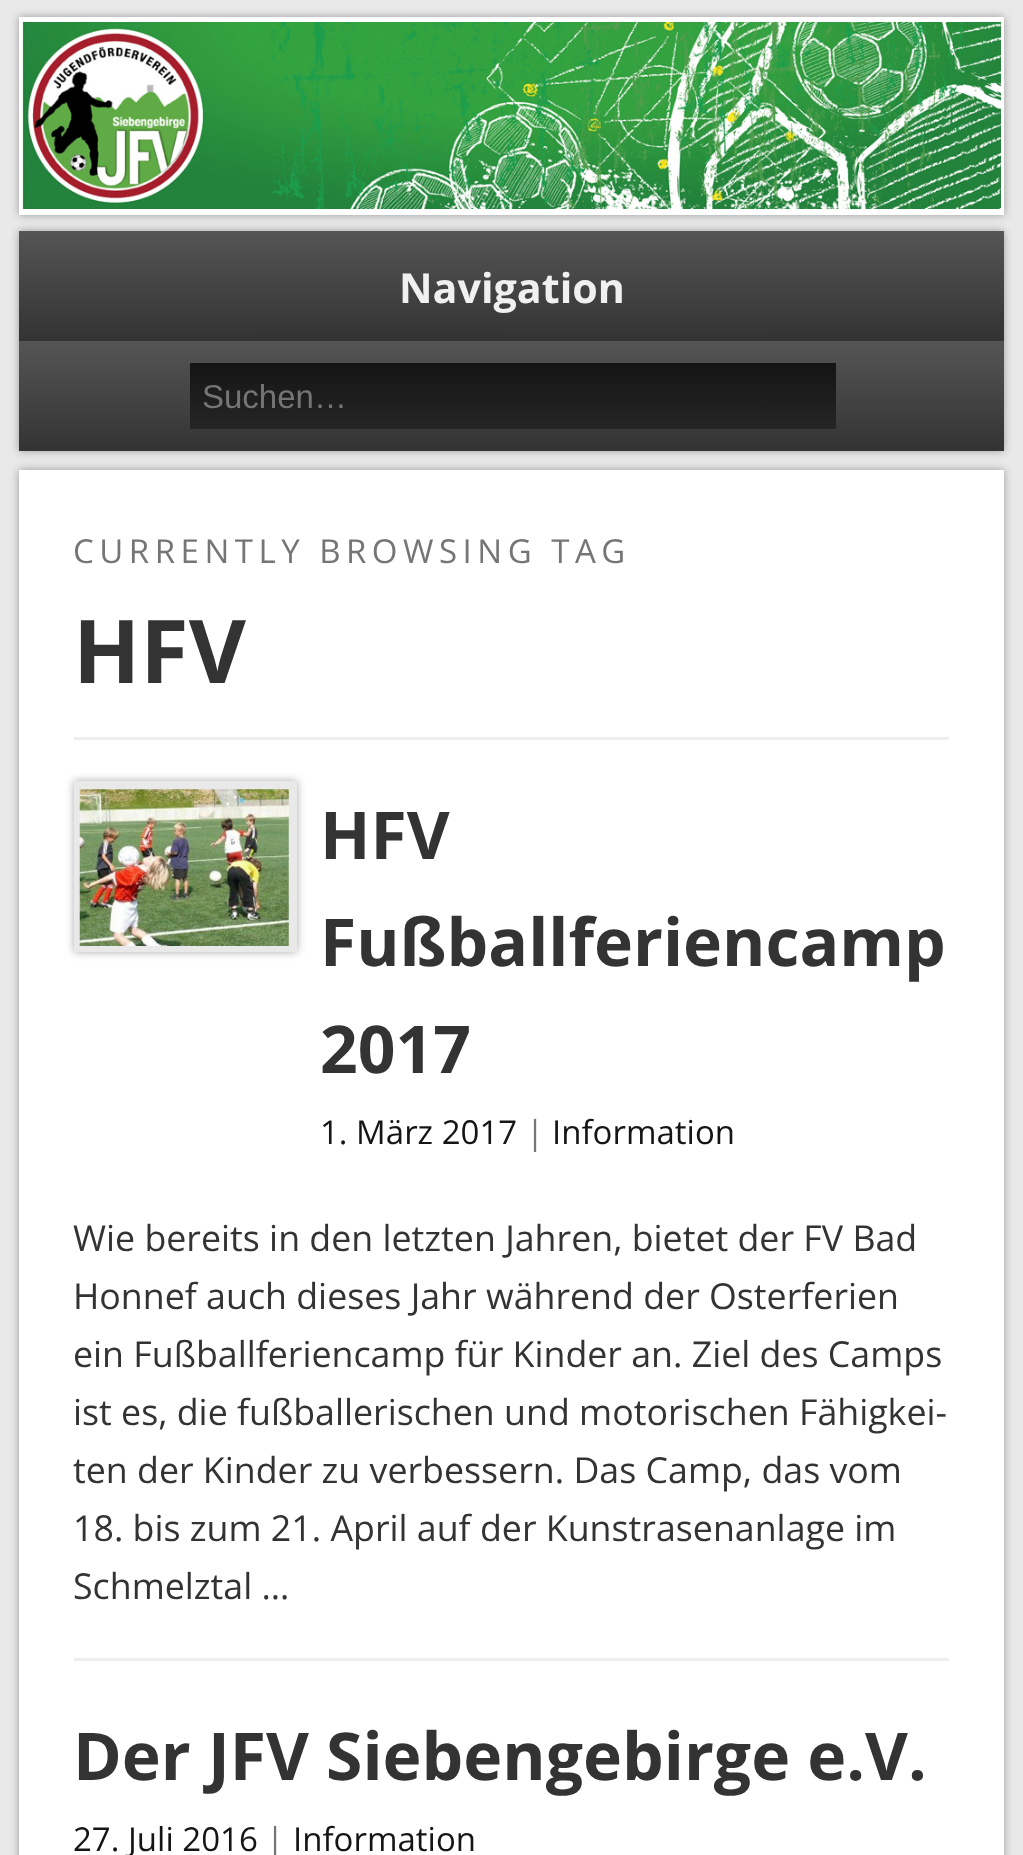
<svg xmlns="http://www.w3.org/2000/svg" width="1023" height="1855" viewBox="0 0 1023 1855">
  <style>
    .t1 { font: bold 41.25px Open Sans; fill: #f0f0f0; }
    .t2 { font: 33px Liberation Sans; fill: #757575; }
    .t3 { font: 33px Open Sans; letter-spacing: 5.5px; fill: #757575; }
    .t4 { font: bold 88px Open Sans; fill: #333; }
    .t5 { font: bold 66px Open Sans; fill: #333; }
    .t6 { font: 33px Open Sans; fill: #151515; }
    .t7 { font: 33px Open Sans; fill: #757575; }
    .t8 { font: 35.75px Open Sans; fill: #333; }
  </style>
  <defs>
    <linearGradient id="g1" gradientUnits="userSpaceOnUse" x1="512" y1="231" x2="512" y2="561"><stop offset="0" stop-color="#555"/><stop offset="0.33" stop-color="#333"/><stop offset="0.33" stop-color="#555"/><stop offset="0.67" stop-color="#333"/><stop offset="0.67" stop-color="#555"/><stop offset="1" stop-color="#333"/></linearGradient>
    <linearGradient id="g2" gradientUnits="userSpaceOnUse" x1="512" y1="231" x2="512" y2="341"><stop offset="0" stop-color="#555"/><stop offset="1" stop-color="#333"/></linearGradient>
    <linearGradient id="g3" gradientUnits="userSpaceOnUse" x1="513" y1="363" x2="513" y2="429"><stop offset="0" stop-color="#151515"/><stop offset="1" stop-color="#252525"/></linearGradient>
  </defs>
  <rect width="100%" height="100%" fill="#e9e9e9"/>
  <rect x="19" y="17" width="985" height="198" fill="#999" filter="blur(4px)"/>
  <rect x="19" y="17" width="985" height="198" fill="#fff"/>
  <image x="22" y="22" width="979" height="187" href="images/1.png"/>
  <rect x="19" y="231" width="985" height="220" fill="#999" filter="blur(4px)"/>
  <rect x="19" y="341" width="985" height="110" fill="url(#g1)"/>
  <rect x="19" y="231" width="985" height="110" fill="url(#g2)"/>
  <text x="399" y="303" class="t1">Navigation</text>
  <rect x="190" y="363" width="646" height="66" fill="url(#g3)"/>
  <text x="202" y="408" class="t2">Suchen…</text>
  <rect x="19" y="470" width="985" height="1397" fill="#999" filter="blur(4px)"/>
  <rect x="19" y="470" width="985" height="1385" fill="#fff"/>
  <text x="73" y="563" class="t3">CURRENTLY BROWSING TAG</text>
  <text x="73" y="683" class="t4">HFV</text>
  <rect x="74" y="737" width="875" height="3" fill="#eee"/>
  <rect x="74" y="781" width="223" height="171" fill="#aaa" filter="blur(4px)"/>
  <rect x="74" y="781" width="223" height="171" fill="#e9e9e9"/>
  <image x="79" y="789" width="210" height="157" href="images/2.png"/>
  <text x="320" y="859" class="t5">HFV</text>
  <text x="320" y="966" class="t5">Fußballferiencamp</text>
  <text x="320" y="1073" class="t5">2017</text>
  <text x="320" y="1144" class="t6">1. März 2017</text>
  <text x="526" y="1144" class="t7">|</text>
  <text x="552" y="1144" class="t6">Information</text>
  <text x="73" y="1251" class="t8">Wie bereits in den letzten Jahren, bietet der FV Bad</text>
  <text x="73" y="1309" class="t8">Honnef auch dieses Jahr während der Osterferien</text>
  <text x="73" y="1367" class="t8">ein Fußballferiencamp für Kinder an. Ziel des Camps</text>
  <text x="73" y="1425" class="t8">ist es, die fußballerischen und motorischen Fähigkei-</text>
  <text x="73" y="1483" class="t8">ten der Kinder zu verbessern. Das Camp, das vom</text>
  <text x="73" y="1541" class="t8">18. bis zum 21. April auf der Kunstrasenanlage im</text>
  <text x="73" y="1599" class="t8">Schmelztal …</text>
  <rect x="74" y="1658" width="875" height="3" fill="#eee"/>
  <text x="73" y="1780" class="t5">Der JFV Siebengebirge e.V.</text>
  <text x="73" y="1851" class="t6">27. Juli 2016</text>
  <text x="266" y="1851" class="t7">|</text>
  <text x="293" y="1851" class="t6">Information</text>
</svg>
